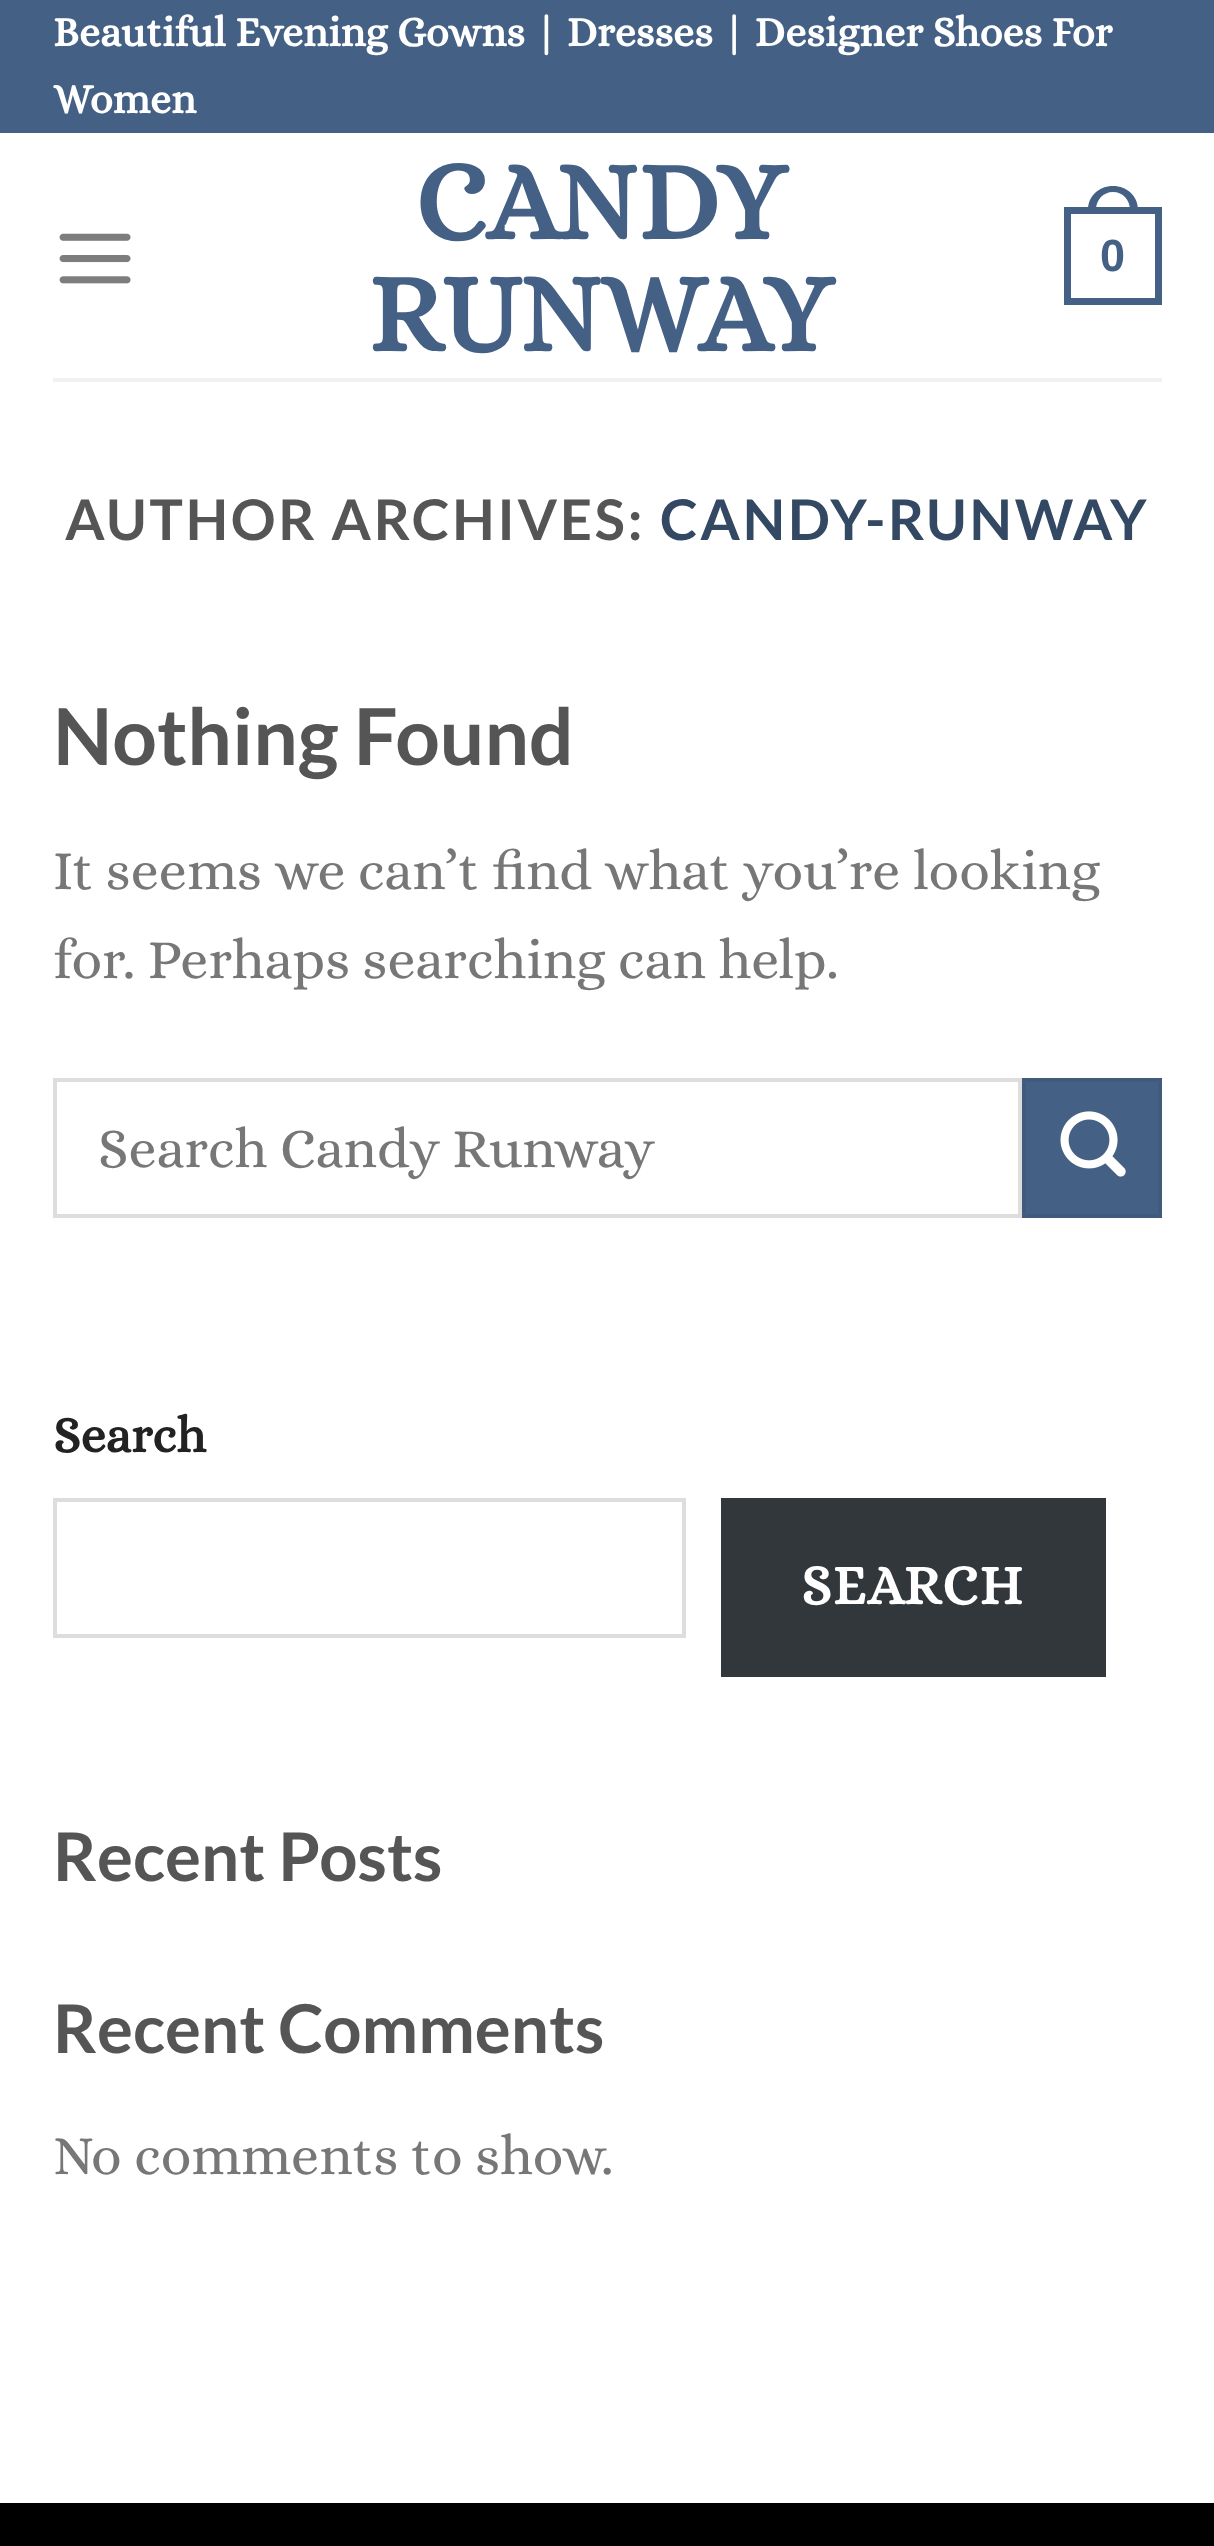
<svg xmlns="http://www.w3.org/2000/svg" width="1214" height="2546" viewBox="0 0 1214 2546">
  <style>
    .t1 { font: bold 42px Alice; fill: #fff; }
    .t2 { font: bold 112px Alice; fill: #446084; }
    .t3 { font: bold 45px Liberation Sans; fill: #446084; }
    .t4 { font: bold 56px Lato; letter-spacing: 2.75px; fill: #555; }
    .t5 { font: bold 56px Lato; letter-spacing: 2.75px; fill: #334862; }
    .t6 { font: bold 78.5px Lato; fill: #555; }
    .t7 { font: 56px Alice; fill: #777; }
    .t8 { font: bold 50.5px Alice; fill: #222; }
    .t9 { font: bold 56px Alice; letter-spacing: 1.75px; fill: #fff; }
    .t10 { font: bold 67.25px Lato; fill: #555; }
  </style>
  <rect width="100%" height="100%" fill="#fff"/>
  <rect x="0" y="0" width="1214" height="133" fill="#446084"/>
  <text x="53" y="46" class="t1">Beautiful Evening Gowns | Dresses | Designer Shoes For</text>
  <text x="53" y="113" class="t1">Women</text>
  <image x="59" y="233" width="72" height="51" href="images/1.png"/>
  <text x="415" y="239" class="t2">CANDY</text>
  <text x="368" y="351" class="t2">RUNWAY</text>
  <rect x="1067.5" y="210.5" width="91" height="91" fill="none" stroke="#446084" stroke-width="7"/>
  <path d="M1113 186C1127 186 1138 196 1138 210V214H1088V210C1088 196 1099 186 1113 186ZM1113 192C1123 192 1130 200 1130 210V214H1096V210C1096 200 1103 192 1113 192Z" fill="#446084" fill-rule="evenodd"/>
  <text x="1100" y="271" class="t3">0</text>
  <rect x="53" y="378" width="1109" height="4" fill="#f1f1f1"/>
  <text x="65" y="540" class="t4">AUTHOR ARCHIVES:</text>
  <text x="660" y="540" class="t5">CANDY-RUNWAY</text>
  <text x="53" y="765" class="t6">Nothing Found</text>
  <text x="53" y="889" class="t7">It seems we can’t find what you’re looking</text>
  <text x="53" y="978" class="t7">for. Perhaps searching can help.</text>
  <rect x="55" y="1080" width="965" height="136" fill="none" stroke="#ddd" stroke-width="4"/>
  <text x="98" y="1167" class="t7">Search Candy Runway</text>
  <rect x="1024" y="1080" width="136" height="136" fill="#446084" stroke="#415b7d" stroke-width="4"/>
  <image x="1060" y="1111" width="66" height="66" href="images/2.png"/>
  <text x="53" y="1452" class="t8">Search</text>
  <rect x="55" y="1500" width="629" height="136" fill="none" stroke="#ddd" stroke-width="4"/>
  <rect x="721" y="1498" width="385" height="179" fill="#32373c"/>
  <text x="801" y="1604" class="t9">SEARCH</text>
  <text x="53" y="1881" class="t10">Recent Posts</text>
  <text x="53" y="2053" class="t10">Recent Comments</text>
  <text x="53" y="2174" class="t7">No comments to show.</text>
  <rect x="0" y="2503" width="1214" height="43" fill="#000"/>
</svg>
